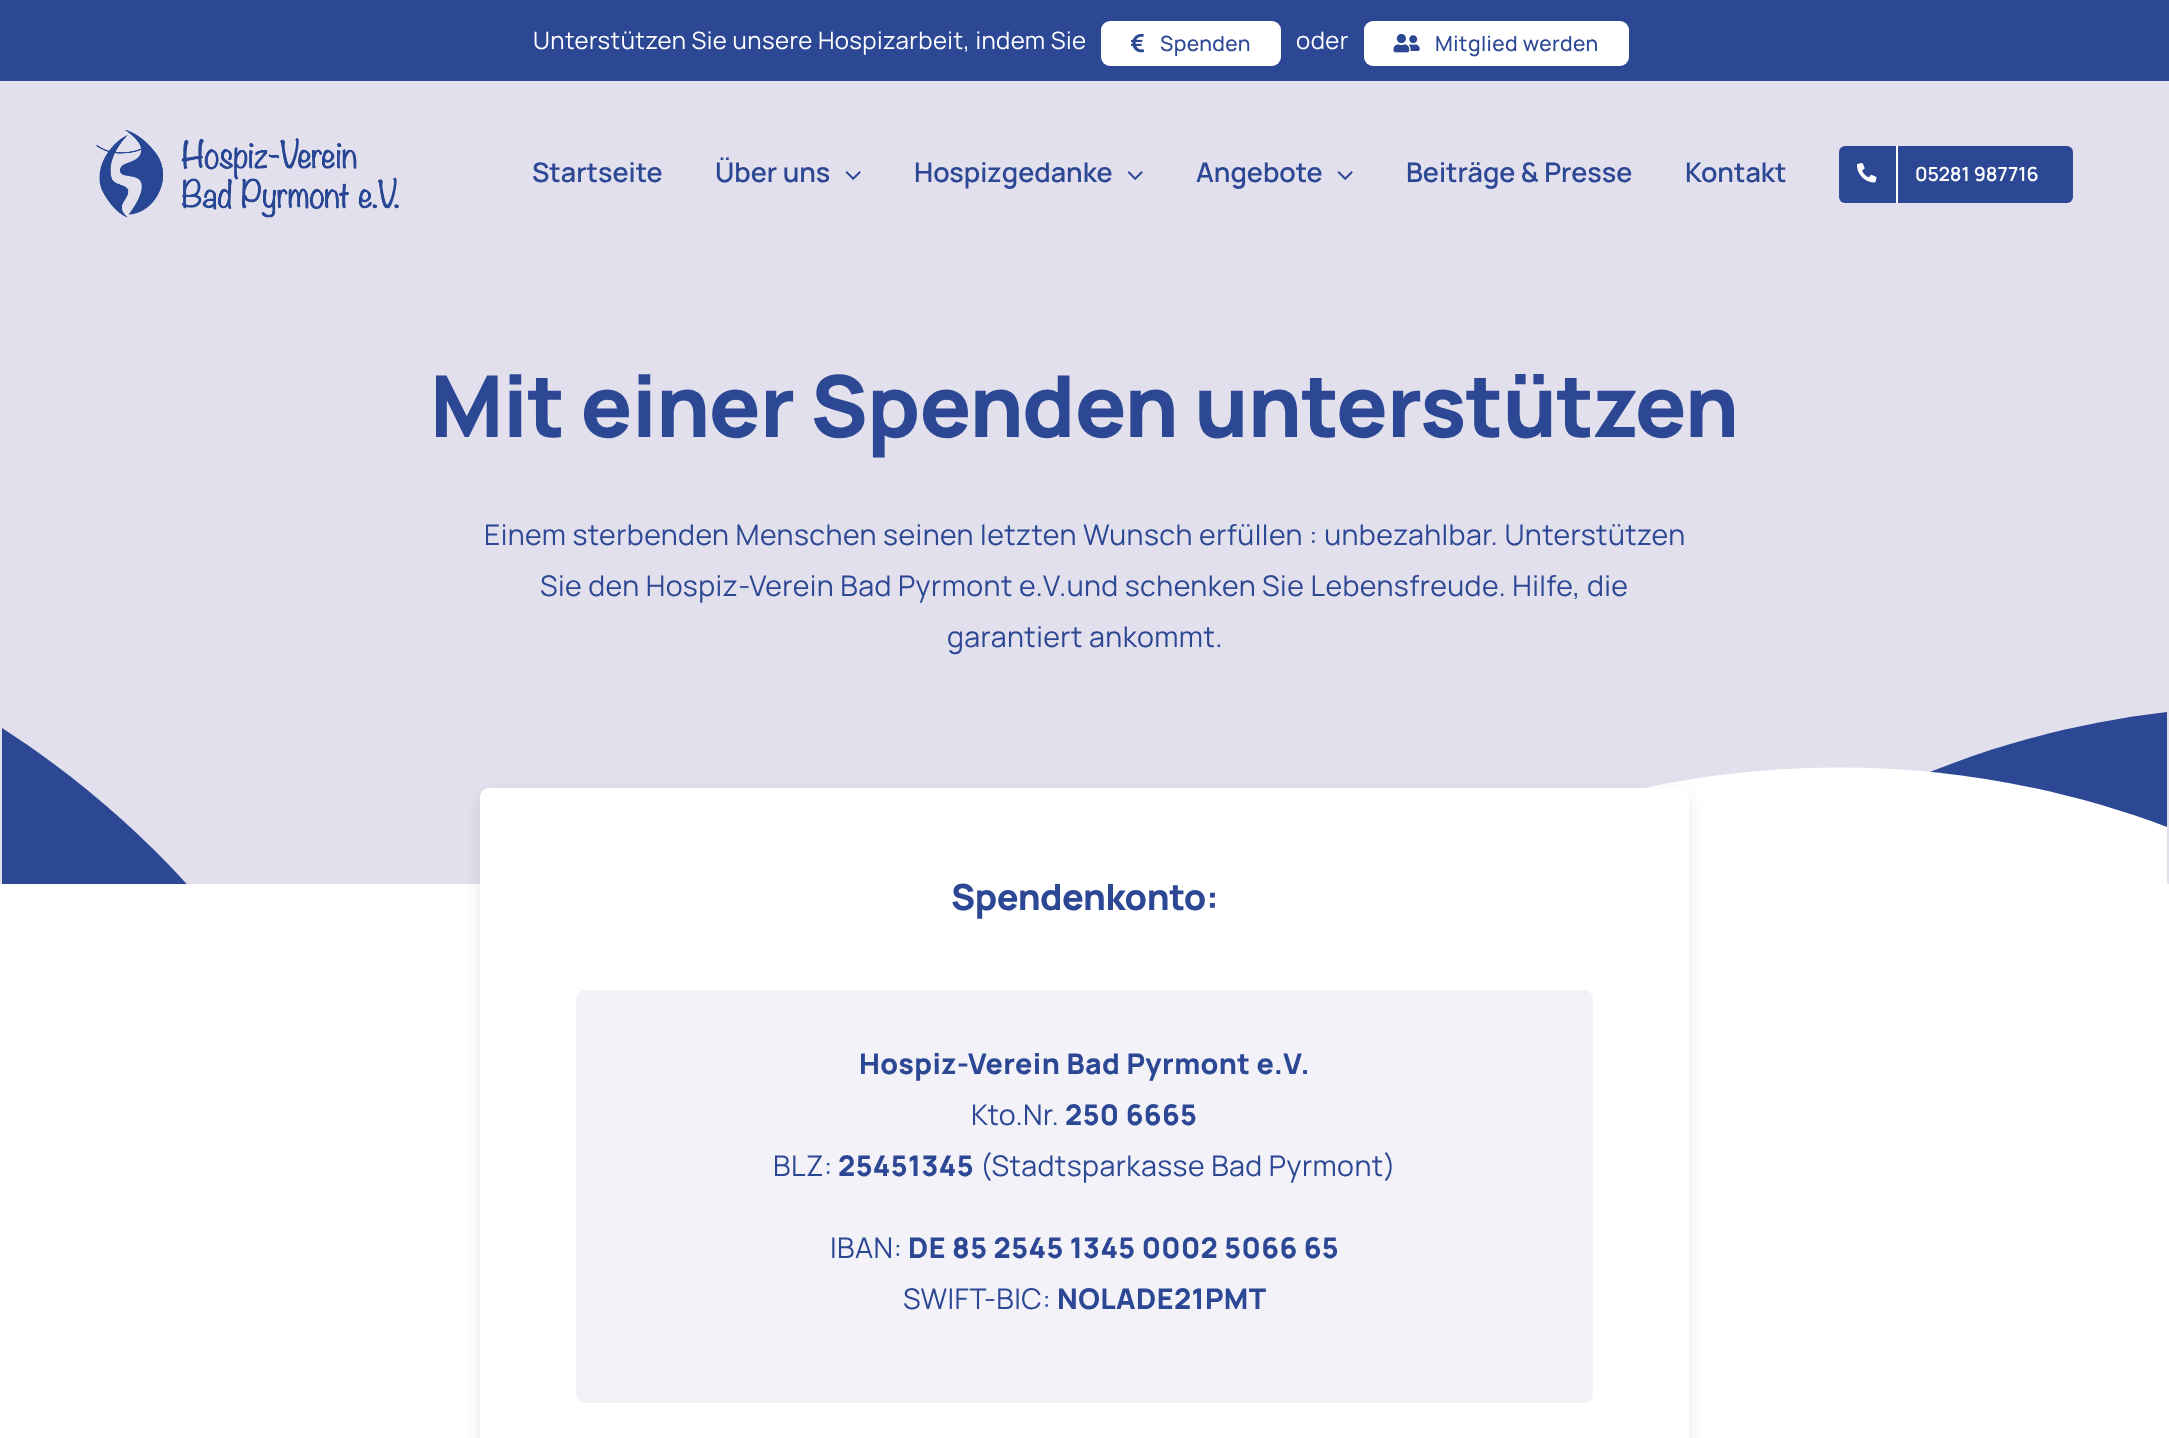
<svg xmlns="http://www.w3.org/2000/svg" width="2169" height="1438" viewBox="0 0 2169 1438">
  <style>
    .t1 { font: 24px Manrope; letter-spacing: 0.43px; fill: #fff; }
    .t2 { font: 500 21px Manrope; letter-spacing: 0.43px; fill: #2c4794; }
    .t3 { font: 600 27px Manrope; fill: #2c4794; }
    .t4 { font: 600 19.5px Manrope; fill: #fff; }
    .t5 { font: 800 85.5px Manrope; letter-spacing: -0.85px; fill: #2c4794; }
    .t6 { font: 28.5px Manrope; letter-spacing: 0.43px; fill: #2c4794; }
    .t7 { font: 800 36px Manrope; letter-spacing: -0.4px; fill: #2c4794; }
    .t8 { font: 800 28.5px Manrope; letter-spacing: 0.43px; fill: #2c4794; }
  </style>
  <defs>
    <clipPath id="clip1"><rect x="0" y="0" width="2169" height="884"/></clipPath>
  </defs>
  <rect width="100%" height="100%" fill="#fff"/>
  <rect x="0" y="0" width="2169" height="81" fill="#2c4794"/>
  <text x="533" y="49" class="t1">Unterstützen Sie unsere Hospizarbeit, indem Sie</text>
  <rect x="1101" y="21" width="180" height="45" rx="9" fill="#fff"/>
  <image x="1131" y="33" width="14" height="20" href="images/1.png"/>
  <text x="1160" y="51" class="t2">Spenden</text>
  <text x="1296" y="49" class="t1">oder</text>
  <rect x="1364" y="21" width="265" height="45" rx="9" fill="#fff"/>
  <image x="1393" y="33" width="27" height="20" href="images/2.png"/>
  <text x="1435" y="51" class="t2">Mitglied werden</text>
  <rect x="0" y="81" width="2169" height="803" fill="#e3e0ed"/>
  <image x="96" y="129" width="303" height="89" href="images/3.png"/>
  <text x="532" y="182" class="t3">Startseite</text>
  <text x="715" y="182" class="t3">Über uns</text>
  <image x="845" y="171" width="16" height="9" href="images/4.png"/>
  <text x="914" y="182" class="t3">Hospizgedanke</text>
  <image x="1127" y="171" width="16" height="9" href="images/4.png"/>
  <text x="1196" y="182" class="t3">Angebote</text>
  <image x="1337" y="171" width="16" height="9" href="images/4.png"/>
  <text x="1406" y="182" class="t3">Beiträge &amp; Presse</text>
  <text x="1685" y="182" class="t3">Kontakt</text>
  <rect x="1839" y="146" width="234" height="57" rx="6" fill="#2c4794"/>
  <rect x="1896" y="146" width="2" height="57" fill="#fff"/>
  <image x="1857" y="163" width="20" height="20" href="images/5.png"/>
  <text x="1915" y="181" class="t4">05281 987716</text>
  <path d="M2167 846H1785C1898 775 2028 728 2167 712Z" fill="#2c4794"/>
  <g clip-path="url(#clip1)">
    <path d="M2 913V728C81 779 152 841 212 913Z" fill="#2c4794"/>
    <path d="M2167 827C1832 701 1453 778 1193 1028H2167Z" fill="#fff"/>
  </g>
  <text x="430" y="437" class="t5">Mit einer Spenden unterstützen</text>
  <text x="484" y="545" class="t6">Einem sterbenden Menschen seinen letzten Wunsch erfüllen : unbezahlbar. Unterstützen</text>
  <text x="540" y="596" class="t6">Sie den Hospiz-Verein Bad Pyrmont e.V.und schenken Sie Lebensfreude. Hilfe, die</text>
  <text x="947" y="647" class="t6">garantiert ankommt.</text>
  <rect x="480" y="795" width="1209" height="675" rx="9" fill="#0000001a" filter="blur(7.5px)"/>
  <rect x="480" y="788" width="1209" height="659" rx="9" fill="#fff"/>
  <text x="951" y="910" class="t7">Spendenkonto:</text>
  <rect x="576" y="990" width="1017" height="413" rx="9" fill="#f3f2f8"/>
  <text x="859" y="1074" class="t8">Hospiz-Verein Bad Pyrmont e.V.</text>
  <text x="971" y="1125" class="t6">Kto.Nr.</text>
  <text x="1065" y="1125" class="t8">250 6665</text>
  <text x="773" y="1176" class="t6">BLZ:</text>
  <text x="838" y="1176" class="t8">25451345</text>
  <text x="980" y="1176" class="t6">(Stadtsparkasse Bad Pyrmont)</text>
  <text x="830" y="1258" class="t6">IBAN:</text>
  <text x="908" y="1258" class="t8">DE 85 2545 1345 0002 5066 65</text>
  <text x="903" y="1309" class="t6">SWIFT-BIC:</text>
  <text x="1057" y="1309" class="t8">NOLADE21PMT</text>
</svg>
